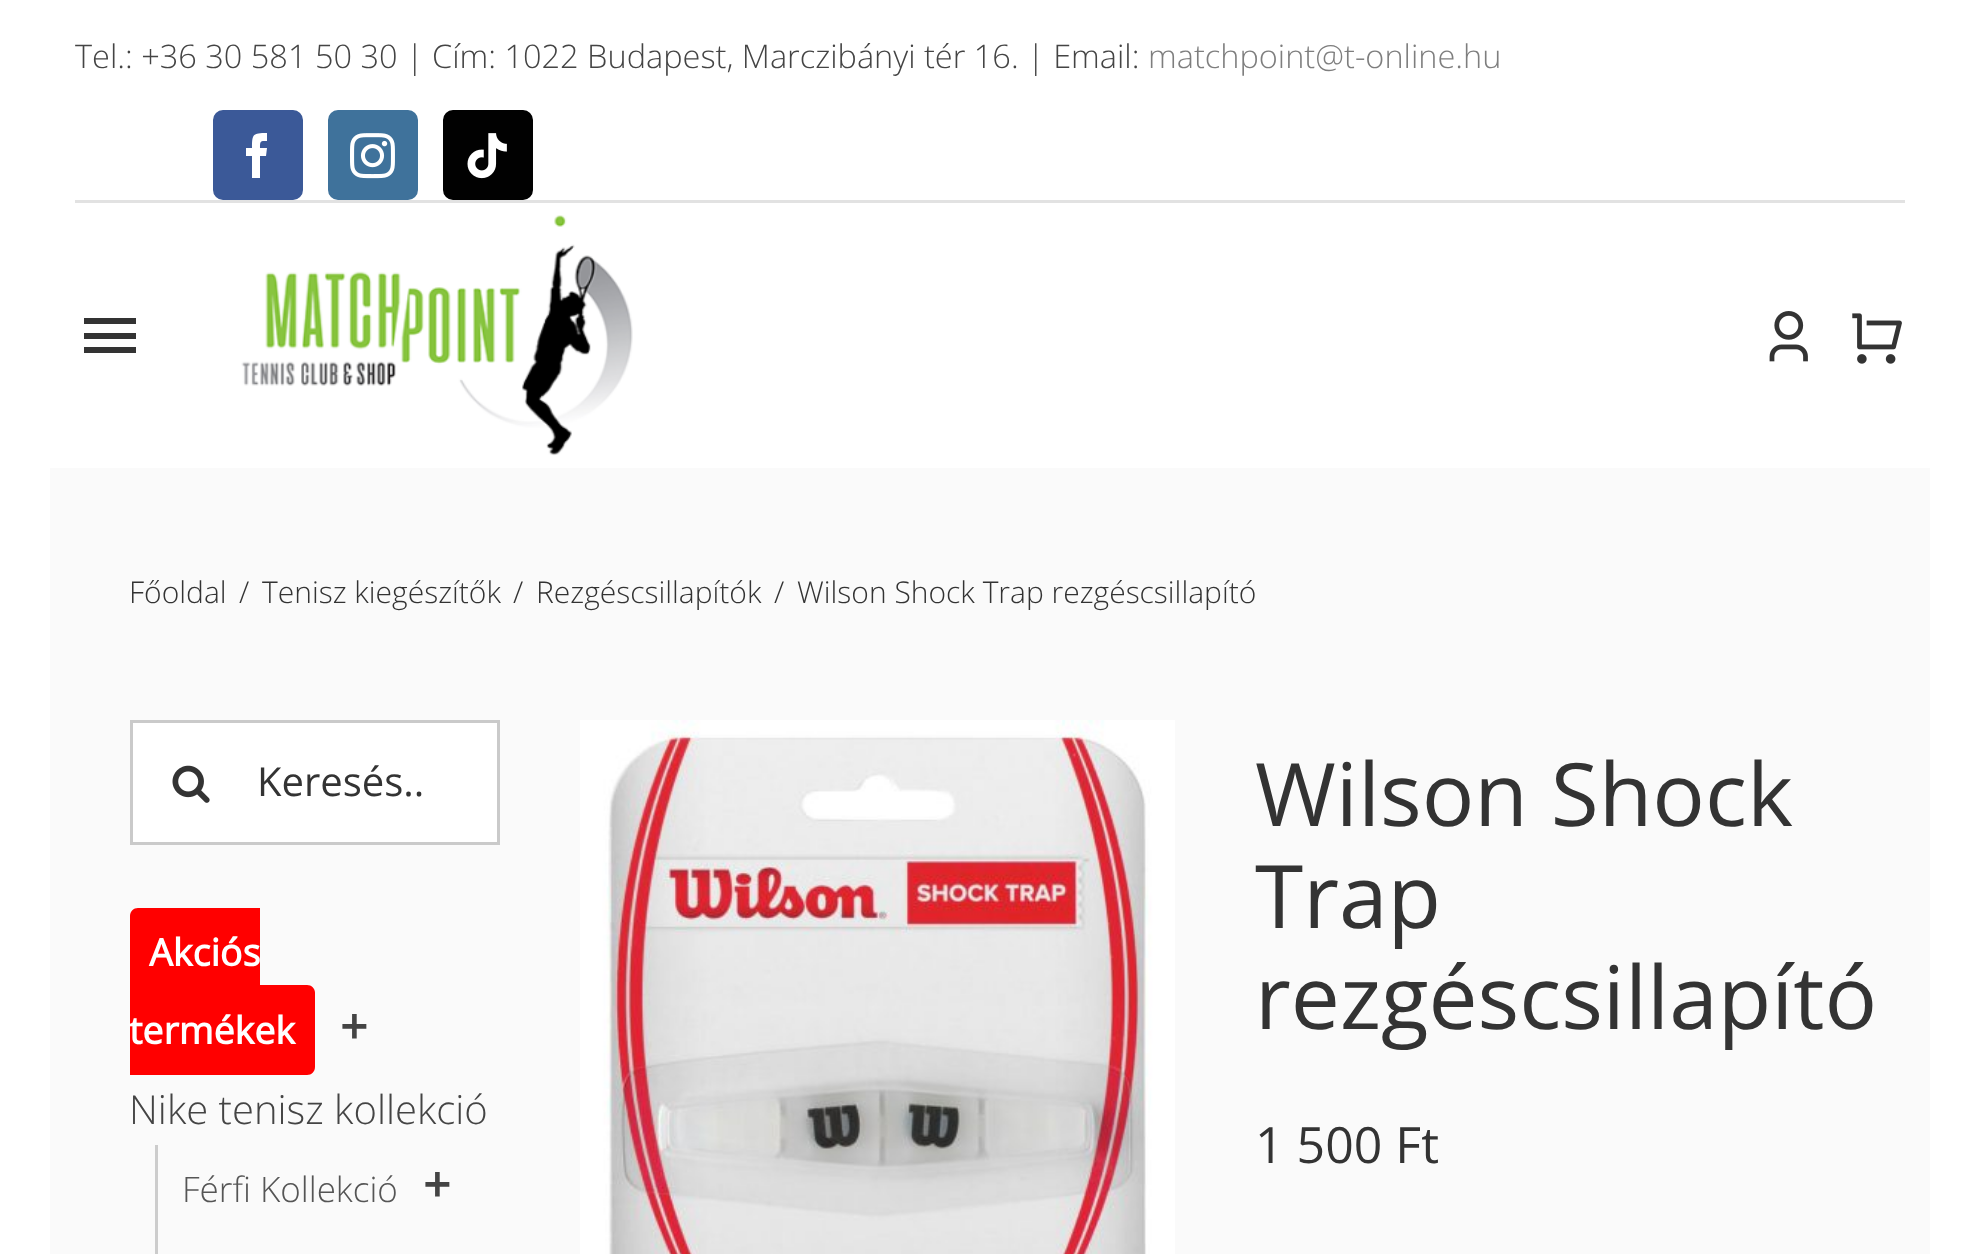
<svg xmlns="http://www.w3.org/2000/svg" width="1979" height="1254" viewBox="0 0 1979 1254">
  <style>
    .t1 { font: 300 32.5px Open Sans; fill: #444; }
    .t2 { font: 300 32.5px Open Sans; fill: #7e7e7e; }
    .t3 { font: 300 30px Open Sans; fill: #333; }
    .t4 { font: 40px Open Sans; fill: #333; }
    .t5 { font: bold 37.5px Open Sans; fill: #fff; }
    .t6 { font: bold 48px Open Sans; fill: #444; }
    .t7 { font: 300 40px Open Sans; fill: #444; }
    .t8 { font: 300 35px Open Sans; fill: #555; }
    .t9 { font: 87.5px Open Sans; fill: #333; }
    .t10 { font: 50px Open Sans; fill: #333; }
  </style>
  <rect width="100%" height="100%" fill="#fff"/>
  <text x="75" y="68" class="t1">Tel.: +36 30 581 50 30 | Cím: 1022 Budapest, Marczibányi tér 16. | Email:</text>
  <text x="1148" y="68" class="t2">matchpoint@t-online.hu</text>
  <rect x="214.5" y="111.5" width="87" height="87" rx="8.5" fill="#3b5998" stroke="#3b5998" stroke-width="3"/>
  <path d="M260 178H252V156H246V148H252C252 134 253 133 267 133V141C260 141 260 141 260 148H267L266 156H260Z" fill="#fff"/>
  <rect x="329.5" y="111.5" width="87" height="87" rx="8.5" fill="#3f729b" stroke="#3f729b" stroke-width="3"/>
  <image x="350" y="133" width="45" height="46" href="images/1.png"/>
  <rect x="444.5" y="111.5" width="87" height="87" rx="8.5" fill="#010101" stroke="#010101" stroke-width="3"/>
  <image x="467" y="133" width="40" height="46" href="images/2.png"/>
  <rect x="75" y="200" width="1830" height="3" fill="#e2e2e2"/>
  <path d="M84 318H136V324H84ZM84 339V333H136V339ZM84 353V347H136V353Z" fill="#333"/>
  <image x="241" y="215" width="392" height="241" href="images/3.png"/>
  <image x="1769" y="311" width="39" height="51" href="images/4.png"/>
  <image x="1852" y="313" width="50" height="51" href="images/5.png"/>
  <rect x="50" y="468" width="1880" height="786" fill="#fafafa"/>
  <text x="129" y="603" class="t3">Főoldal</text>
  <text x="239" y="603" class="t3">/</text>
  <text x="262" y="603" class="t3">Tenisz kiegészítők</text>
  <text x="513" y="603" class="t3">/</text>
  <text x="536" y="603" class="t3">Rezgéscsillapítók</text>
  <text x="774" y="603" class="t3">/</text>
  <text x="797" y="603" class="t3">Wilson Shock Trap rezgéscsillapító</text>
  <rect x="131.5" y="721.5" width="367" height="122" fill="#fff" stroke="#cacaca" stroke-width="3"/>
  <image x="172" y="765" width="38" height="38" href="images/6.png"/>
  <text x="257" y="796" class="t4">Keresés..</text>
  <path d="M138 908H260V998H138C133.5 998 130 994.5 130 990V916C130 911.5 133.5 908 138 908Z" fill="#f00"/>
  <text x="149" y="966" class="t5">Akciós</text>
  <path d="M130 985H307C311.5 985 315 988.5 315 993V1067C315 1071.5 311.5 1075 307 1075H130Z" fill="#f00"/>
  <text x="129" y="1044" class="t5">termékek</text>
  <text x="340" y="1044" class="t6">+</text>
  <text x="129" y="1124" class="t7">Nike tenisz kollekció</text>
  <rect x="155" y="1145" width="3" height="109" fill="#ccc"/>
  <text x="182" y="1202" class="t8">Férfi Kollekció</text>
  <text x="423" y="1202" class="t6">+</text>
  <image x="580" y="720" width="595" height="534" href="images/7.png"/>
  <text x="1255" y="826" class="t9">Wilson Shock</text>
  <text x="1255" y="928" class="t9">Trap</text>
  <text x="1255" y="1029" class="t9">rezgéscsillapító</text>
  <text x="1255" y="1163" class="t10">1 500 Ft</text>
</svg>
